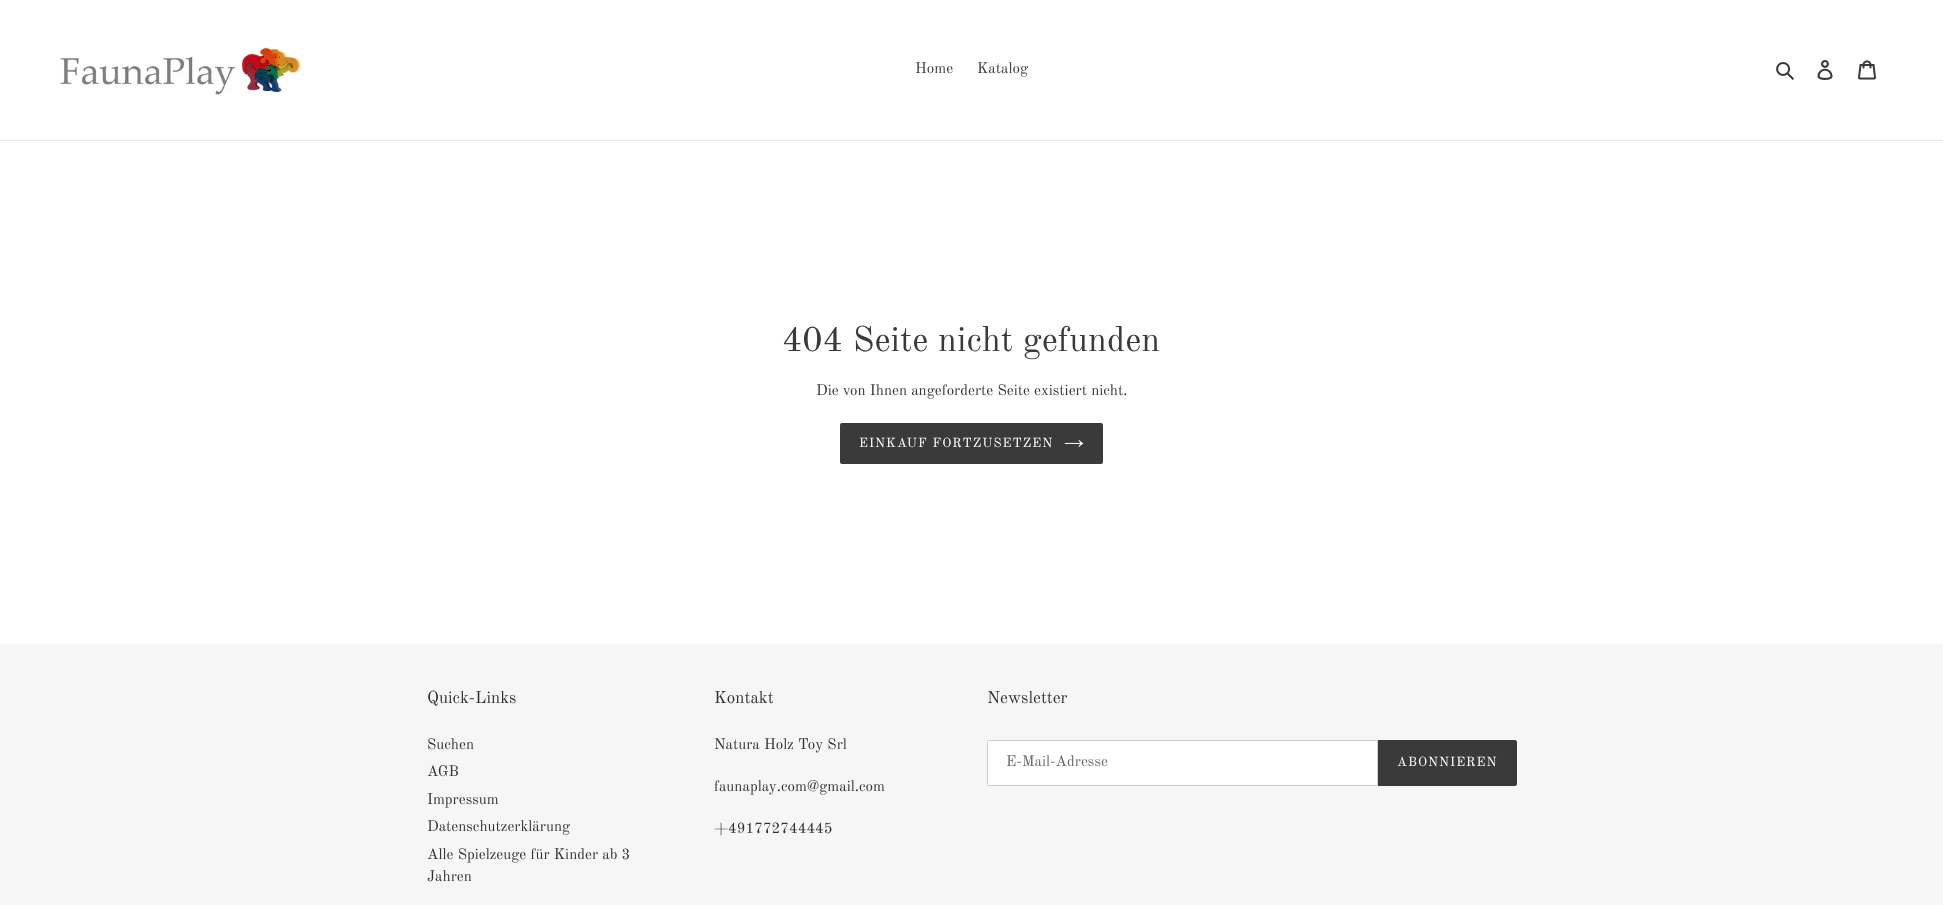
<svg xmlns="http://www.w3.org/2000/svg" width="1943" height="905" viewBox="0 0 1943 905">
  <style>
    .t1 { font: 15px Old Standard TT; fill: #3a3a3a; }
    .t2 { font: 35px Old Standard TT; fill: #3a3a3a; }
    .t3 { font: 15px Old Standard TT; fill: #333232; }
    .t4 { font: 13px Old Standard TT; letter-spacing: 1px; fill: #fff; }
    .t5 { font: 17px Old Standard TT; fill: #333232; }
    .t6 { font: 15px Old Standard TT; fill: #666; }
  </style>
  <rect width="100%" height="100%" fill="#fff"/>
  <rect x="0" y="140" width="1943" height="1" fill="#ebebeb"/>
  <image x="60" y="47" width="245" height="48" href="images/1.png"/>
  <text x="915" y="73" class="t1">Home</text>
  <text x="977" y="73" class="t1">Katalog</text>
  <image x="1776" y="62" width="18" height="18" href="images/2.png"/>
  <image x="1817" y="60" width="16" height="20" href="images/3.png"/>
  <image x="1858" y="60" width="18" height="20" href="images/4.png"/>
  <text x="782" y="351" class="t2">404 Seite nicht gefunden</text>
  <text x="816" y="395" class="t3">Die von Ihnen angeforderte Seite existiert nicht.</text>
  <rect x="840" y="423" width="263" height="41" rx="2" fill="#3a3a3a"/>
  <text x="859" y="447" class="t4">EINKAUF FORTZUSETZEN</text>
  <image x="1064" y="439" width="20" height="8" href="images/5.png"/>
  <rect x="0" y="644" width="1943" height="261" fill="#f6f6f6"/>
  <text x="427" y="703" class="t5">Quick-Links</text>
  <text x="427" y="749" class="t3">Suchen</text>
  <text x="427" y="776" class="t3">AGB</text>
  <text x="427" y="804" class="t3">Impressum</text>
  <text x="427" y="831" class="t3">Datenschutzerklärung</text>
  <text x="427" y="859" class="t3">Alle Spielzeuge für Kinder ab 3</text>
  <text x="427" y="881" class="t3">Jahren</text>
  <text x="714" y="703" class="t5">Kontakt</text>
  <text x="714" y="749" class="t3">Natura Holz Toy Srl</text>
  <text x="714" y="791" class="t3">faunaplay.com@gmail.com</text>
  <text x="714" y="833" class="t3">+491772744445</text>
  <text x="987" y="703" class="t5">Newsletter</text>
  <path d="M989 740.5H1377.5V785.5H989C988 785.5 987.5 785 987.5 784V742C987.5 741 988 740.5 989 740.5Z" fill="#fff" stroke="#ccc"/>
  <text x="1006" y="766" class="t6">E-Mail-Adresse</text>
  <path d="M1378 740H1515C1516 740 1517 741 1517 742V784C1517 785 1516 786 1515 786H1378Z" fill="#3a3a3a"/>
  <text x="1397" y="766" class="t4">ABONNIEREN</text>
</svg>
